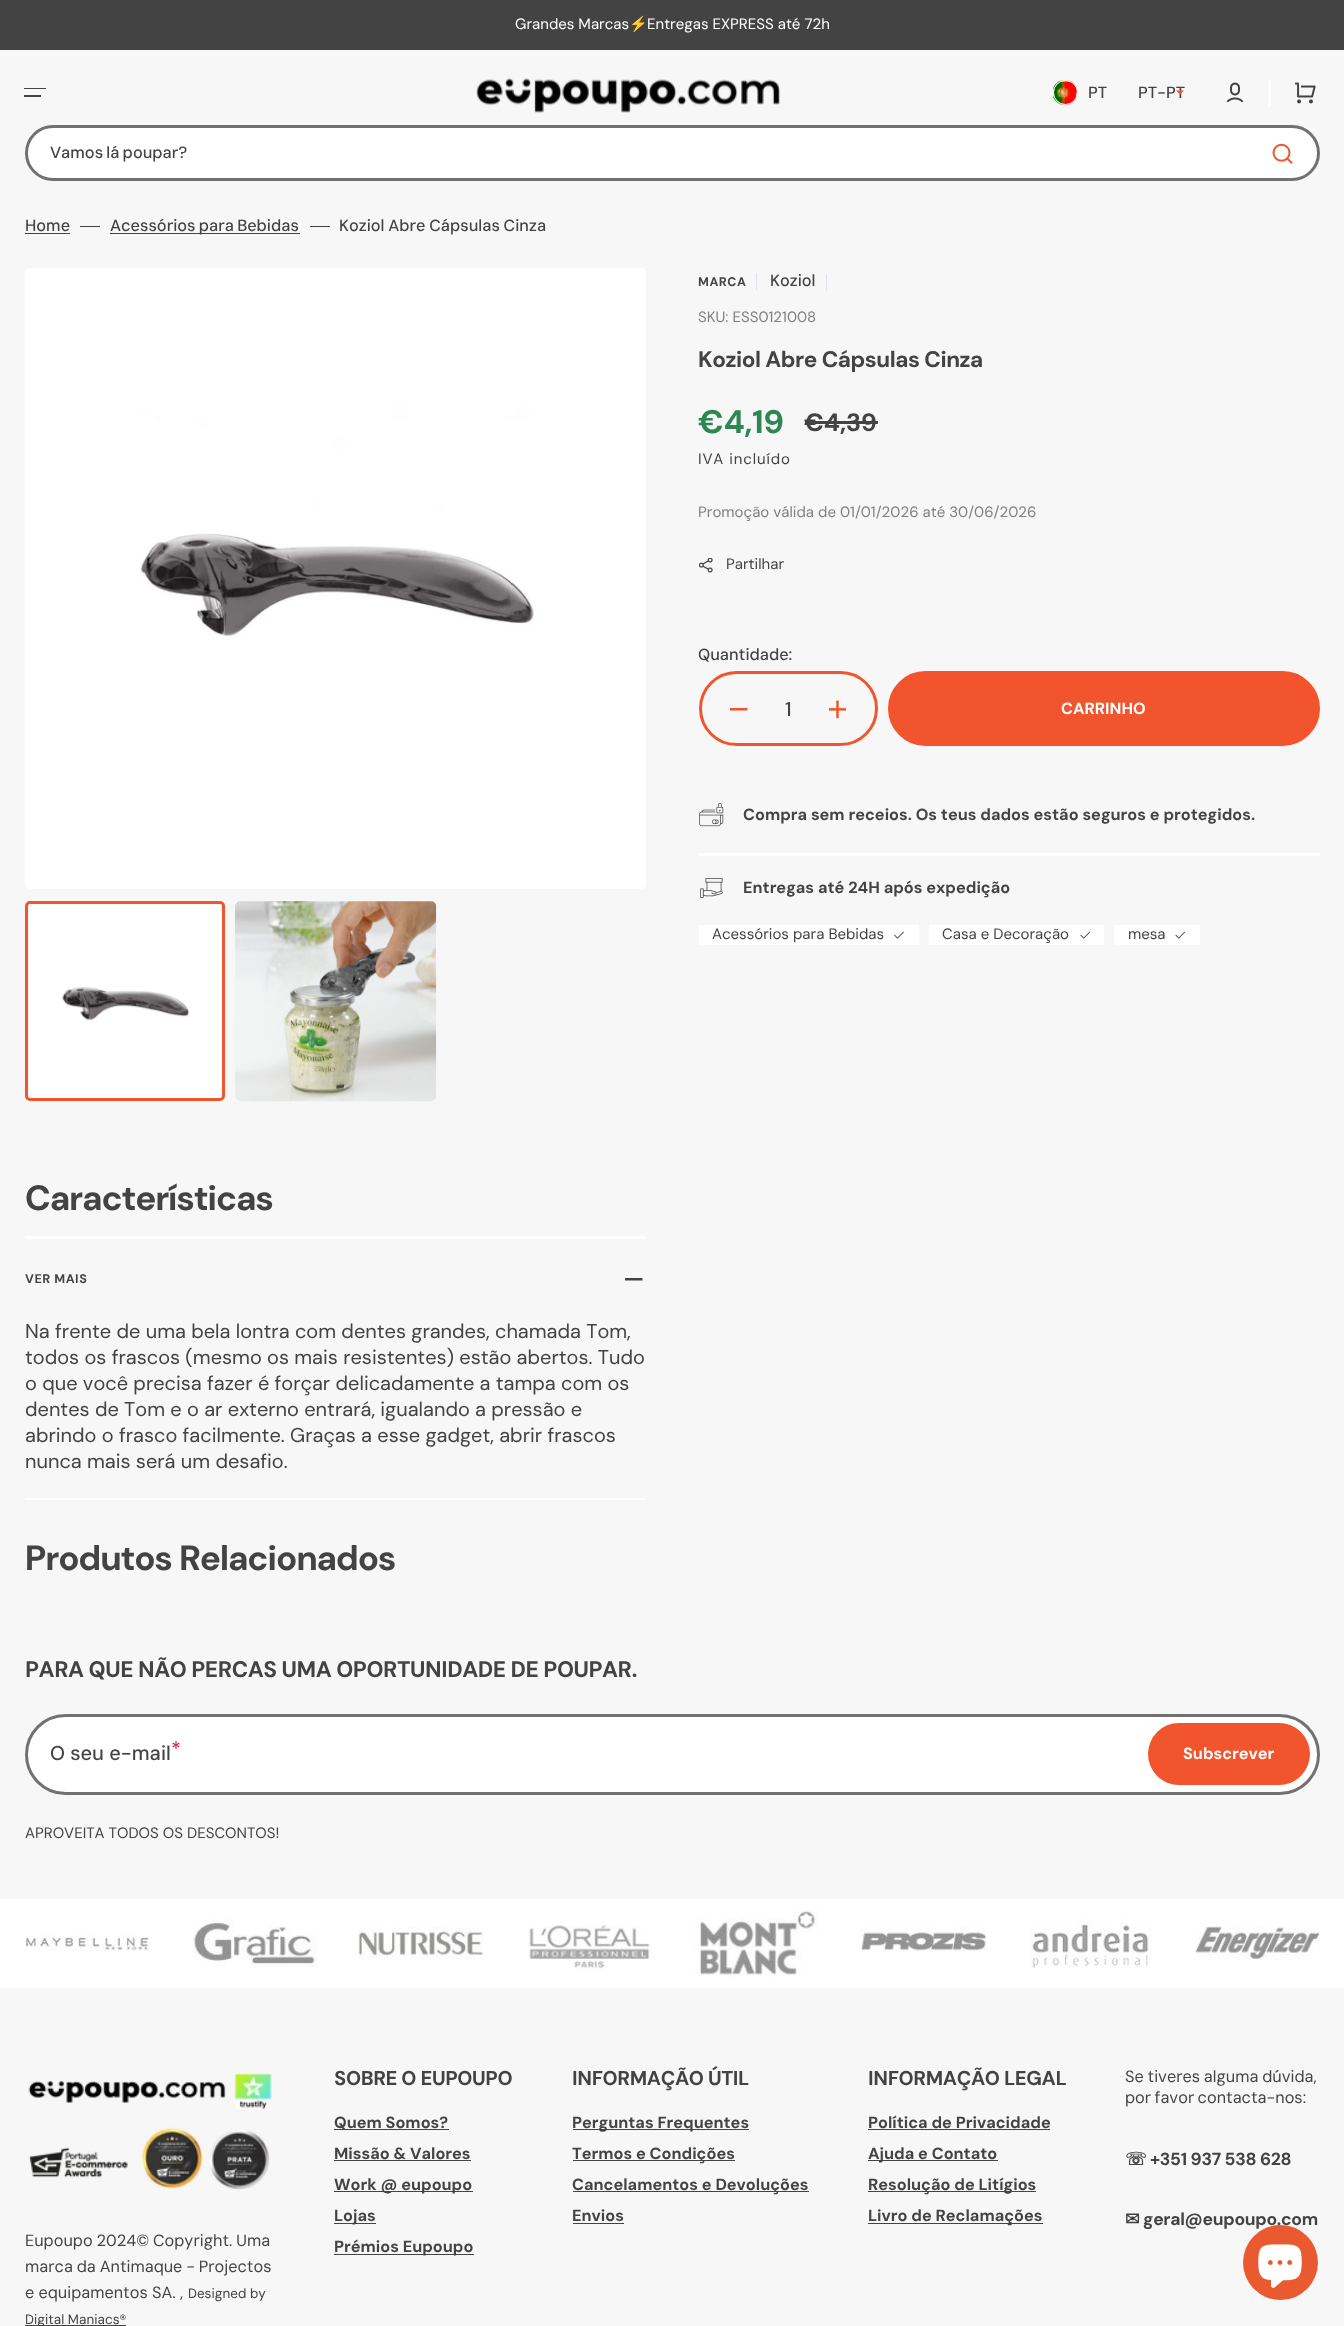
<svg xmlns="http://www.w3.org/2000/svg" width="1344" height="2326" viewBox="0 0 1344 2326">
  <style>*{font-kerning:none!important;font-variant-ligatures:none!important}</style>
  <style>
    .t1 { font: 15px DM Sans; fill: #fff; }
    .t2 { font: 15px Noto Color Emoji; fill: #fff; }
    .t3 { font: 500 16.25px DM Sans; fill: #434343; }
    .t4 { font: bold 12.5px 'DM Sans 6'; letter-spacing: 0.5px; fill: #434343; }
    .t5 { font: 15px DM Sans; fill: #808080; }
    .t6 { font: bold 22.5px DM Sans; letter-spacing: -0.45px; fill: #434343; }
    .t7 { font: bold 32.5px 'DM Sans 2'; fill: #2d8653; }
    .t8 { font: bold 25px 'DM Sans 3'; fill: #434343; }
    .t9 { font: 15px DM Sans; letter-spacing: 0.9px; fill: #434343; }
    .t10 { font: 15px DM Sans; fill: #434343; }
    .t11 { font: 500 20px 'DM Sans 2'; fill: #434343; }
    .t12 { font: bold 16.25px 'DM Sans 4'; fill: #fff; }
    .t13 { font: bold 16.25px 'DM Sans 4'; fill: #434343; }
    .t14 { font: bold 35px 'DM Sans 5'; letter-spacing: -0.7px; fill: #434343; }
    .t15 { font: 20px 'DM Sans 2'; fill: #434343; }
    .t16 { font: bold 22.5px 'DM Sans 6'; letter-spacing: -0.45px; fill: #434343; }
    .t17 { font: 500 20px DM Sans; fill: #434343; }
    .t18 { font: 500 20px DM Sans; fill: #d41f4b; }
    .t19 { font: bold 20px 'DM Sans 6'; letter-spacing: -0.4px; fill: #434343; }
    .t20 { font: 16.25px 'DM Sans 3'; fill: #434343; }
    .t21 { font: bold 17.5px DejaVu Sans; letter-spacing: -0.3px; fill: #434343; }
    .t22 { font: bold 17.5px 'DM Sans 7'; letter-spacing: -0.3px; fill: #434343; }
    .t23 { font: 13.5px 'DM Sans 3'; fill: #434343; }
  </style>
  <rect width="100%" height="100%" fill="#f7f7f7"/>
  <rect x="0" y="0" width="1344" height="50" fill="#434343"/>
  <text x="515" y="29" class="t1">Grandes Marcas</text>
  <text x="629" y="29" class="t2">⚡</text>
  <text x="647" y="29" class="t1">Entregas EXPRESS até 72h</text>
  <rect x="24" y="88" width="22" height="1" fill="#434343"/>
  <rect x="24" y="95" width="17" height="2" fill="#434343"/>
  <image x="476" y="78" width="305" height="35" href="images/1.png"/>
  <image x="1053" y="79" width="25" height="27" href="images/2.png"/>
  <circle cx="1065.5" cy="92.5" r="12" fill="none" stroke="#fff"/>
  <text x="1088" y="98" class="t3">PT</text>
  <text x="1138" y="98" class="t3">PT-PT</text>
  <path d="M1180 94.5L1176 90.5H1184Z" fill="#f2542d"/>
  <image x="1226" y="82" width="18" height="21" href="images/3.png"/>
  <rect x="1268" y="80" width="3" height="26" fill="#fff"/>
  <image x="1295" y="82" width="21" height="22" href="images/4.png"/>
  <rect x="26.5" y="126.5" width="1292" height="53" rx="26.5" fill="#fff" stroke="#717171" stroke-width="3"/>
  <text x="50" y="158" word-spacing="-1" class="t3">Vamos lá poupar?</text>
  <image x="1272" y="143" width="21" height="21" href="images/5.png"/>
  <text x="25" y="231" class="t3">Home</text>
  <rect x="25" y="233" width="45" height="1" fill="#434343"/>
  <rect x="80" y="226" width="20" height="1" fill="#434343"/>
  <rect x="110" y="233" width="190" height="1" fill="#434343"/>
  <text x="110" y="231" word-spacing="-1" class="t3">Acessórios para Bebidas</text>
  <rect x="310" y="226" width="20" height="1" fill="#434343"/>
  <text x="339" y="231" word-spacing="-0.5" class="t3">Koziol Abre Cápsulas Cinza</text>
  <text x="698" y="286" class="t4">MARCA</text>
  <rect x="756" y="273" width="1" height="17" fill="#e0e3ee"/>
  <text x="770" y="286" class="t3">Koziol</text>
  <rect x="826" y="274" width="1" height="17" fill="#e0e3ee"/>
  <text x="698" y="322" class="t5">SKU: ESS0121008</text>
  <text x="698" y="367" class="t6">Koziol Abre Cápsulas Cinza</text>
  <text x="698" y="433" class="t7">€4,19</text>
  <text x="804" y="431" class="t8">€4,39</text>
  <rect x="805" y="421" width="73" height="3" fill="#434343"/>
  <text x="698" y="464" class="t9">IVA incluído</text>
  <text x="698" y="517" class="t5">Promoção válida de 01/01/2026 até 30/06/2026</text>
  <image x="699" y="558" width="14" height="15" href="images/6.png"/>
  <text x="726" y="569" class="t10">Partilhar</text>
  <text x="698" y="660" class="t3">Quantidade:</text>
  <rect x="700.5" y="672.5" width="176" height="72" rx="36" fill="none" stroke="#f2542d" stroke-width="3"/>
  <path d="M737.5 708H747.5V710.5H730V708Z" fill="#f2542d"/>
  <text x="785" y="716" class="t11">1</text>
  <image x="829" y="700" width="17" height="19" href="images/7.png"/>
  <rect x="889.5" y="672.5" width="429" height="72" rx="36" fill="#f2542d" stroke="#f2542d" stroke-width="3"/>
  <text x="1061" y="714" class="t12">CARRINHO</text>
  <image x="699" y="803" width="25" height="24" href="images/8.png"/>
  <text x="743" y="820" class="t13">Compra sem receios. Os teus dados estão seguros e protegidos.</text>
  <rect x="699" y="853" width="621" height="3" fill="#fff"/>
  <image x="700" y="878" width="23" height="20" href="images/9.png"/>
  <text x="743" y="893" class="t13">Entregas até 24H após expedição</text>
  <rect x="699" y="925" width="220" height="20" fill="#fff"/>
  <text x="712" y="939" class="t10">Acessórios para Bebidas</text>
  <image x="894" y="931" width="10" height="8" href="images/10.png"/>
  <rect x="929" y="925" width="175" height="20" fill="#fff"/>
  <text x="942" y="939" class="t10">Casa e Decoração</text>
  <image x="1080" y="931" width="10" height="8" href="images/11.png"/>
  <rect x="1114" y="925" width="86" height="20" fill="#fff"/>
  <text x="1128" y="939" class="t10">mesa</text>
  <image x="1175" y="931" width="11" height="8" href="images/12.png"/>
  <rect x="25" y="268" width="621" height="621" rx="5" fill="#fff"/>
  <image x="140" y="268" width="504" height="369" href="images/13.png"/>
  <rect x="25" y="901" width="200" height="200" fill="#fff"/>
  <image x="62" y="986" width="127" height="35" href="images/14.png"/>
  <rect x="26.5" y="902.5" width="197" height="197" rx="3.5" fill="none" stroke="#f2542d" stroke-width="3"/>
  <rect x="235" y="901" width="201" height="200" fill="#fff"/>
  <image x="235" y="901" width="202" height="201" href="images/15.png"/>
  <text x="25" y="1210" class="t14">Características</text>
  <rect x="25" y="1236" width="621" height="3" fill="#fff"/>
  <rect x="25" y="1498" width="621" height="2" fill="#fff"/>
  <text x="25" y="1283" class="t4">VER MAIS</text>
  <path d="M632.5 1278H642.5V1280.5H625V1278Z" fill="#434343"/>
  <text x="25" y="1338" class="t15">Na frente de uma bela lontra com dentes grandes, chamada Tom,</text>
  <text x="25" y="1364" class="t15">todos os frascos (mesmo os mais resistentes) estão abertos. Tudo</text>
  <text x="25" y="1390" class="t15">o que você precisa fazer é forçar delicadamente a tampa com os</text>
  <text x="25" y="1416" class="t15">dentes de Tom e o ar externo entrará, igualando a pressão e</text>
  <text x="25" y="1442" class="t15">abrindo o frasco facilmente. Graças a esse gadget, abrir frascos</text>
  <text x="25" y="1468" class="t15">nunca mais será um desafio.</text>
  <text x="25" y="1570" class="t14">Produtos Relacionados</text>
  <text x="25" y="1677" class="t16">PARA QUE NÃO PERCAS UMA OPORTUNIDADE DE POUPAR.</text>
  <rect x="26.5" y="1715.5" width="1292" height="78" rx="39" fill="#fff" stroke="#717171" stroke-width="3"/>
  <text x="50" y="1760" class="t17">O seu e-mail</text>
  <text x="171" y="1756" class="t18">*</text>
  <rect x="1148" y="1723" width="162" height="62" rx="31" fill="#f2542d"/>
  <text x="1183" y="1759" class="t12">Subscrever</text>
  <text x="25" y="1838" class="t10">APROVEITA TODOS OS DESCONTOS!</text>
  <rect x="0" y="1899" width="1344" height="89" fill="#fff"/>
  <image x="25" y="1935" width="125" height="16" href="images/16.png"/>
  <image x="193" y="1919" width="125" height="50" href="images/17.png"/>
  <image x="358" y="1926" width="126" height="34" href="images/18.png"/>
  <image x="528" y="1925" width="123" height="44" href="images/19.png"/>
  <image x="694" y="1909" width="125" height="68" href="images/20.png"/>
  <image x="861" y="1926" width="125" height="26" href="images/21.png"/>
  <image x="1029" y="1918" width="123" height="51" href="images/22.png"/>
  <image x="1195" y="1926" width="125" height="34" href="images/23.png"/>
  <text x="334" y="2085" class="t19">SOBRE O EUPOUPO</text>
  <rect x="334" y="2129" width="115" height="1" fill="#434343"/>
  <text x="334" y="2128" class="t13">Quem Somos?</text>
  <text x="334" y="2159" class="t13">Missão &amp; Valores</text>
  <rect x="334" y="2160" width="137" height="1" fill="#434343"/>
  <rect x="334" y="2191" width="139" height="1" fill="#434343"/>
  <text x="334" y="2190" class="t13">Work @ eupoupo</text>
  <rect x="334" y="2223" width="42" height="1" fill="#434343"/>
  <text x="334" y="2221" class="t13">Lojas</text>
  <rect x="334" y="2254" width="140" height="1" fill="#434343"/>
  <text x="334" y="2252" class="t13">Prémios Eupoupo</text>
  <text x="572" y="2085" class="t19">INFORMAÇÃO ÚTIL</text>
  <rect x="573" y="2129" width="176" height="1" fill="#434343"/>
  <text x="572" y="2128" class="t13">Perguntas Frequentes</text>
  <rect x="573" y="2160" width="162" height="1" fill="#434343"/>
  <text x="572" y="2159" class="t13">Termos e Condições</text>
  <rect x="573" y="2191" width="236" height="1" fill="#434343"/>
  <text x="572" y="2190" class="t13">Cancelamentos e Devoluções</text>
  <text x="572" y="2221" class="t13">Envios</text>
  <rect x="573" y="2223" width="51" height="1" fill="#434343"/>
  <text x="868" y="2085" class="t19">INFORMAÇÃO LEGAL</text>
  <text x="868" y="2128" class="t13">Política de Privacidade</text>
  <rect x="868" y="2129" width="182" height="1" fill="#434343"/>
  <rect x="868" y="2160" width="130" height="1" fill="#434343"/>
  <text x="868" y="2159" class="t13">Ajuda e Contato</text>
  <rect x="868" y="2191" width="168" height="1" fill="#434343"/>
  <text x="868" y="2190" class="t13">Resolução de Litígios</text>
  <rect x="868" y="2223" width="175" height="1" fill="#434343"/>
  <text x="868" y="2221" class="t13">Livro de Reclamações</text>
  <text x="1125" y="2082" word-spacing="-0.5" class="t20">Se tiveres alguma dúvida,</text>
  <text x="1125" y="2103" word-spacing="-1" class="t20">por favor contacta-nos:</text>
  <text x="1125" y="2165" class="t21">☏</text>
  <text x="1150" y="2165" class="t22">+351 937 538 628</text>
  <text x="1125" y="2225" class="t21">✉</text>
  <text x="1143" y="2225" class="t22">geral@eupoupo.com</text>
  <image x="28" y="2073" width="244" height="117" href="images/24.png"/>
  <text x="25" y="2246" word-spacing="-0.5" class="t20">Eupoupo 2024© Copyright. Uma</text>
  <text x="25" y="2272" word-spacing="-0.5" class="t20">marca da Antimaque - Projectos</text>
  <text x="25" y="2298" class="t20">e equipamentos SA.</text>
  <text x="188" y="2298" class="t23">Designed by</text>
  <rect x="25" y="2325" width="101" height="1" fill="#434343"/>
  <text x="25" y="2324" class="t23">Digital Maniacs®</text>
  <text x="180" y="2298" class="t20">,</text>
  <circle cx="1280.5" cy="2262.5" r="37.5" fill="#e95a31"/>
  <image x="1258" y="2244" width="44" height="44" href="images/25.png"/>
</svg>
